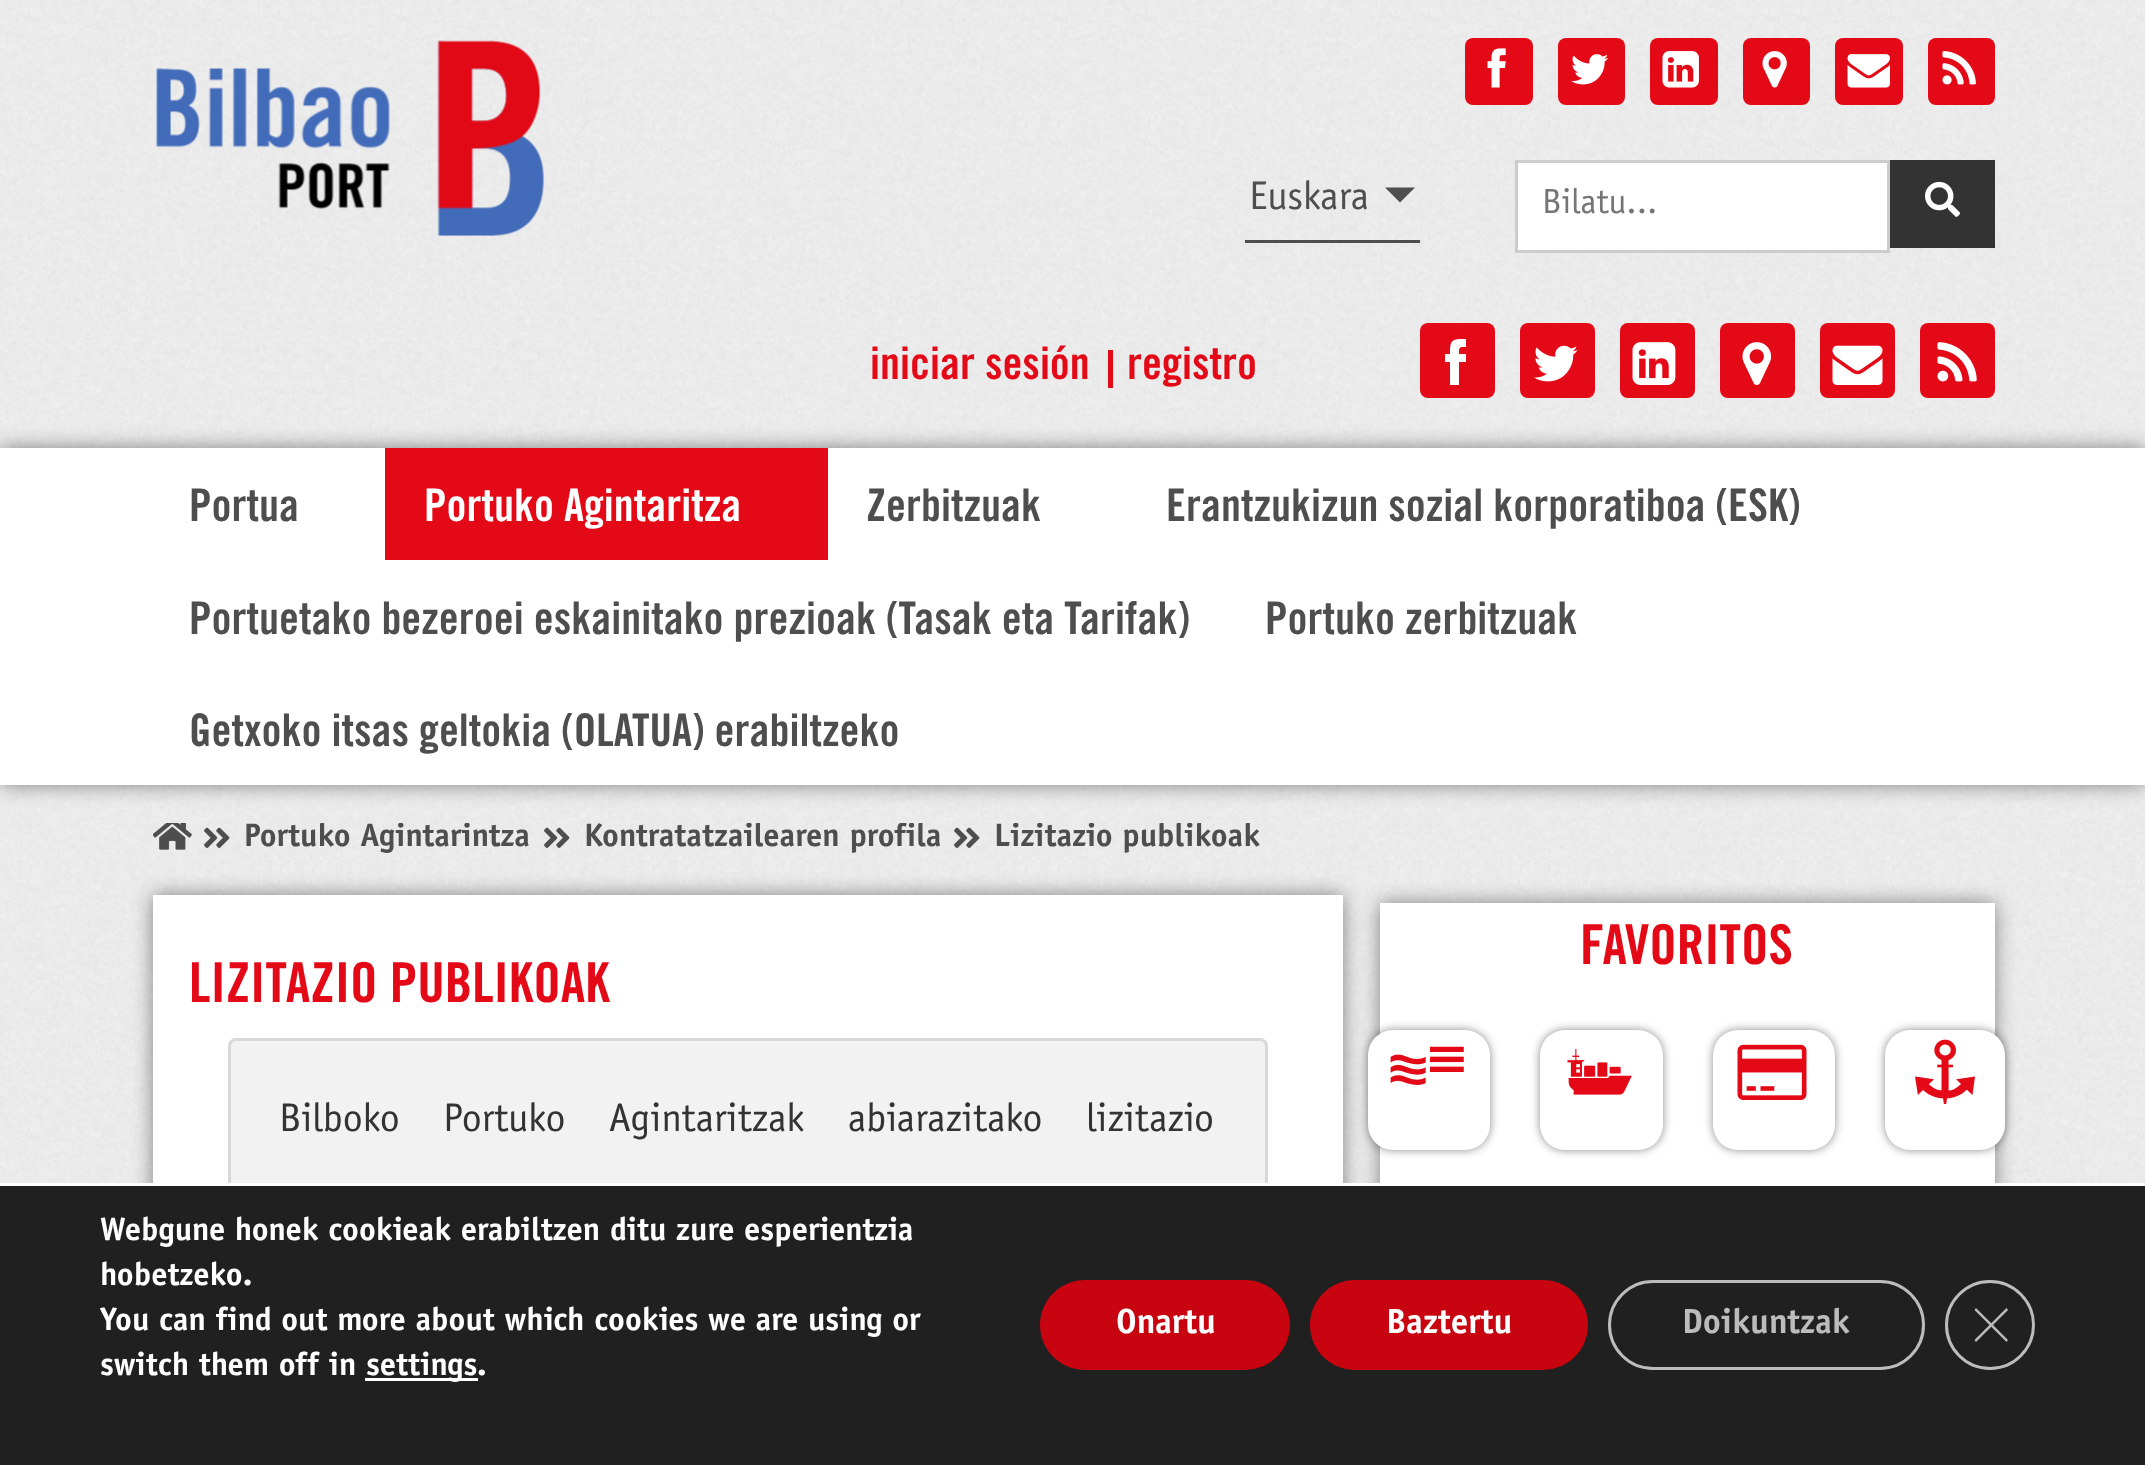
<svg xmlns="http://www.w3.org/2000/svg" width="2145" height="1465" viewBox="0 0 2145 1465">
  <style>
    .t1 { font: 40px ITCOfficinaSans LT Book; fill: #4e4e4e; }
    .t2 { font: 35px ITCOfficinaSans LT Book; fill: #757575; }
    .t3 { font: bold 45px 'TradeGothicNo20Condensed'; fill: #e30917; }
    .t4 { font: bold 45px 'TradeGothicNo20Condensed'; fill: #4e4e4e; }
    .t5 { font: bold 45px 'TradeGothicNo20Condensed'; fill: #fff; }
    .t6 { font: bold 32.5px ITCOfficinaSans LT Book; fill: #4e4e4e; }
    .t7 { font: bold 55px 'TradeGothicNo20Condensed'; fill: #e30917; }
    .t8 { font: 40px ITCOfficinaSans LT Book; fill: #333; }
    .t9 { font: bold 32.5px ITCOfficinaSans LT Book; fill: #fff; }
    .t10 { font: bold 35px ITCOfficinaSans LT Book; fill: #fff; }
    .t11 { font: bold 35px ITCOfficinaSans LT Book; fill: #bcbcbc; }
  </style>
  <defs>
    <clipPath id="clip1"><rect x="153" y="823" width="1107" height="72" rx="8"/></clipPath>
  </defs>
  <rect width="100%" height="100%" fill="#fff"/>
  <image x="0" y="0" width="2145" height="1183" href="images/1.png"/>
  <image x="156" y="40" width="389" height="196" href="images/2.png"/>
  <rect x="1465" y="38" width="68" height="67" rx="8" fill="#e30917"/>
  <image x="1487" y="48" width="19" height="40" href="images/3.png"/>
  <rect x="1558" y="38" width="67" height="67" rx="8" fill="#e30917"/>
  <image x="1571" y="54" width="38" height="31" href="images/4.png"/>
  <rect x="1650" y="38" width="68" height="67" rx="8" fill="#e30917"/>
  <image x="1662" y="51" width="37" height="37" href="images/5.png"/>
  <rect x="1743" y="38" width="67" height="67" rx="8" fill="#e30917"/>
  <image x="1762" y="51" width="25" height="37" href="images/6.png"/>
  <rect x="1835" y="38" width="68" height="67" rx="8" fill="#e30917"/>
  <image x="1847" y="54" width="43" height="34" href="images/7.png"/>
  <rect x="1928" y="38" width="67" height="67" rx="8" fill="#e30917"/>
  <image x="1942" y="51" width="34" height="34" href="images/8.png"/>
  <rect x="1245" y="240" width="175" height="3" fill="#4e4e4e"/>
  <text x="1249" y="209" class="t1">Euskara</text>
  <path d="M1385 187.5H1415L1400 202.5Z" fill="#4e4e4e"/>
  <rect x="1516.5" y="161.5" width="372" height="90" fill="#fff" stroke="#ccc" stroke-width="3"/>
  <text x="1542" y="213" class="t2">Bilatu...</text>
  <rect x="1890" y="160" width="105" height="88" fill="#333"/>
  <image x="1925" y="181" width="35" height="36" href="images/9.png"/>
  <text x="870" y="379" class="t3">iniciar sesión</text>
  <rect x="1108" y="350" width="5" height="38" fill="#e30917"/>
  <text x="1127" y="379" class="t3">registro</text>
  <rect x="1420" y="323" width="75" height="75" rx="8" fill="#e30917"/>
  <path d="M1459 354H1466V362H1459V385H1450V362H1445V354H1450C1450 339 1452 339 1466 339V347C1459 347 1459 347 1459 354Z" fill="#fff"/>
  <rect x="1520" y="323" width="75" height="75" rx="8" fill="#e30917"/>
  <image x="1534" y="345" width="44" height="37" href="images/10.png"/>
  <rect x="1620" y="323" width="75" height="75" rx="8" fill="#e30917"/>
  <image x="1632" y="342" width="44" height="43" href="images/11.png"/>
  <rect x="1720" y="323" width="75" height="75" rx="8" fill="#e30917"/>
  <image x="1742" y="342" width="30" height="43" href="images/12.png"/>
  <rect x="1820" y="323" width="75" height="75" rx="8" fill="#e30917"/>
  <image x="1832" y="345" width="51" height="40" href="images/13.png"/>
  <rect x="1920" y="323" width="75" height="75" rx="8" fill="#e30917"/>
  <image x="1937" y="342" width="40" height="40" href="images/14.png"/>
  <rect x="0" y="448" width="2145" height="337" fill="#00000073" filter="blur(10px)"/>
  <rect x="0" y="448" width="2145" height="337" fill="#fff"/>
  <text x="189" y="521" class="t4">Portua</text>
  <rect x="385" y="448" width="443" height="112" fill="#e30917"/>
  <text x="424" y="521" class="t5">Portuko Agintaritza</text>
  <text x="866" y="521" class="t4">Zerbitzuak</text>
  <text x="1166" y="521" class="t4">Erantzukizun sozial korporatiboa (ESK)</text>
  <text x="189" y="634" class="t4">Portuetako bezeroei eskainitako prezioak (Tasak eta Tarifak)</text>
  <text x="1265" y="634" class="t4">Portuko zerbitzuak</text>
  <text x="189" y="746" class="t4">Getxoko itsas geltokia (OLATUA) erabiltzeko</text>
  <image x="153" y="823" width="39" height="27" href="images/15.png"/>
  <image x="204" y="827" width="26" height="21" href="images/16.png"/>
  <g clip-path="url(#clip1)">
    <text x="244" y="846" class="t6">Portuko Agintarintza</text>
  </g>
  <image x="544" y="827" width="26" height="21" href="images/17.png"/>
  <g clip-path="url(#clip1)">
    <text x="584" y="846" class="t6">Kontratatzailearen profila</text>
  </g>
  <image x="954" y="827" width="26" height="21" href="images/18.png"/>
  <g clip-path="url(#clip1)">
    <text x="994" y="846" class="t6">Lizitazio publikoak</text>
  </g>
  <rect x="1380" y="903" width="615" height="407" fill="#00000073" filter="blur(10px)"/>
  <rect x="1380" y="903" width="615" height="280" fill="#fff"/>
  <text x="1580" y="964" class="t7">FAVORITOS</text>
  <rect x="1368" y="1030" width="122" height="120" rx="25" fill="#00000073" filter="blur(5px)"/>
  <rect x="153" y="895" width="1190" height="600" fill="#00000073" filter="blur(10px)"/>
  <rect x="1368" y="1030" width="122" height="120" rx="25" fill="#fff"/>
  <image x="1390" y="1046" width="74" height="39" href="images/19.png"/>
  <rect x="1540" y="1030" width="123" height="120" rx="25" fill="#00000073" filter="blur(5px)"/>
  <rect x="1540" y="1030" width="123" height="120" rx="25" fill="#fff"/>
  <image x="1567" y="1049" width="65" height="46" href="images/20.png"/>
  <rect x="1713" y="1030" width="122" height="120" rx="25" fill="#00000073" filter="blur(5px)"/>
  <rect x="1713" y="1030" width="122" height="120" rx="25" fill="#fff"/>
  <image x="1737" y="1044" width="70" height="56" href="images/21.png"/>
  <rect x="1885" y="1030" width="120" height="120" rx="25" fill="#00000073" filter="blur(5px)"/>
  <rect x="1885" y="1030" width="120" height="120" rx="25" fill="#fff"/>
  <image x="1915" y="1039" width="60" height="65" href="images/22.png"/>
  <rect x="153" y="895" width="1190" height="288" fill="#fff"/>
  <text x="189" y="1002" class="t7">LIZITAZIO PUBLIKOAK</text>
  <rect x="229.5" y="1039.5" width="1037" height="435" rx="6.5" fill="#f2f2f2" stroke="#d8d8d8" stroke-width="3"/>
  <text x="279" y="1131" word-spacing="31.5" class="t8">Bilboko Portuko Agintaritzak abiarazitako lizitazio</text>
  <rect x="0" y="1186" width="2145" height="279" fill="#202020"/>
  <rect x="133" y="1183" width="1882" height="3" fill="#fff"/>
  <text x="100" y="1240" class="t9">Webgune honek cookieak erabiltzen ditu zure esperientzia</text>
  <text x="100" y="1285" class="t9">hobetzeko.</text>
  <text x="100" y="1330" class="t9">You can find out more about which cookies we are using or</text>
  <text x="100" y="1375" class="t9">switch them off in</text>
  <rect x="365" y="1378" width="113" height="3" fill="#fff"/>
  <text x="366" y="1375" class="t9">settings</text>
  <text x="477" y="1375" class="t9">.</text>
  <rect x="1040" y="1280" width="250" height="90" rx="45" fill="#c70410"/>
  <text x="1116" y="1333" class="t10">Onartu</text>
  <rect x="1310" y="1280" width="278" height="90" rx="45" fill="#c70410"/>
  <text x="1386" y="1333" class="t10">Baztertu</text>
  <rect x="1609.5" y="1281.5" width="314" height="87" rx="43.5" fill="none" stroke="#bcbcbc" stroke-width="3"/>
  <text x="1682" y="1333" class="t11">Doikuntzak</text>
  <circle cx="1990" cy="1325" r="43.5" fill="none" stroke="#bcbcbc" stroke-width="3"/>
  <path d="M2006.5 1308L2008 1310L1976 1342L1974.5 1340Z" fill="#bcbcbc"/>
  <path d="M1974.5 1310L1976 1308L2008 1340L2006.5 1342Z" fill="#bcbcbc"/>
</svg>
